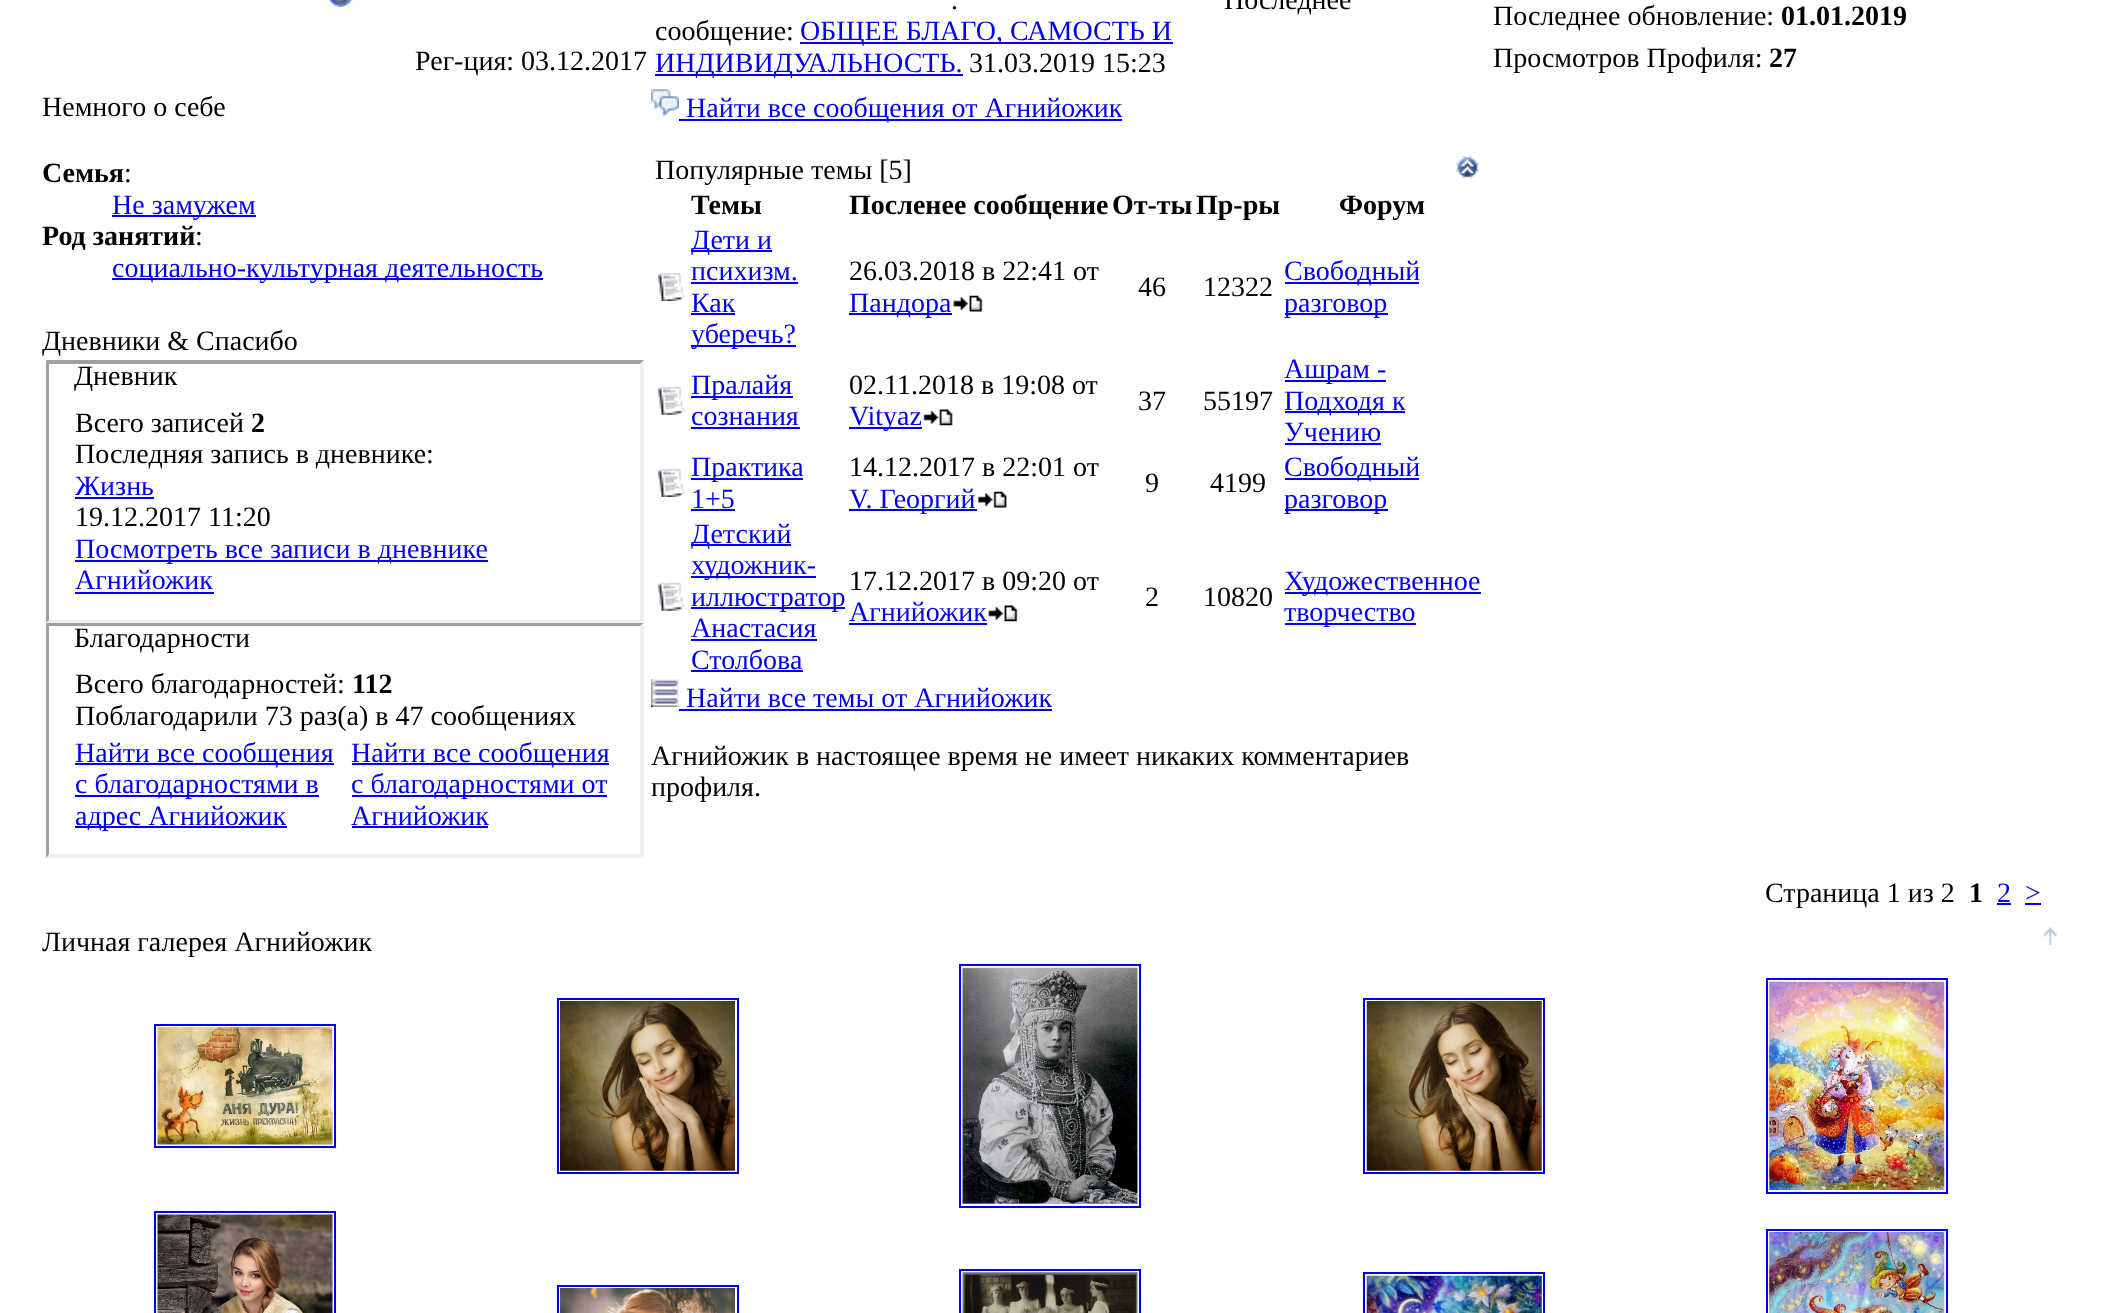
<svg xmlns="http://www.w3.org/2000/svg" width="2101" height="1313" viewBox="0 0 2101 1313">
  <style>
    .t1 { font: 28px Liberation Serif; fill: #000; }
    .t2 { font: 28px Liberation Serif; fill: #00e; }
    .t3 { font: bold 28px Liberation Serif; fill: #000; }
  </style>
  <rect width="100%" height="100%" fill="#fff"/>
  <text x="951" y="9" class="t1">.</text>
  <text x="1224" y="9" class="t1">Последнее</text>
  <text x="655" y="40" class="t1">сообщение:</text>
  <rect x="800" y="42" width="373" height="2" fill="#00e"/>
  <text x="800" y="40" class="t2">ОБЩЕЕ БЛАГО, САМОСТЬ И</text>
  <rect x="655" y="74" width="308" height="2" fill="#00e"/>
  <text x="655" y="72" class="t2">ИНДИВИДУАЛЬНОСТЬ.</text>
  <text x="969" y="72" class="t1">31.03.2019 15:23</text>
  <image x="651" y="89" width="28" height="27" href="images/1.png"/>
  <rect x="679" y="119" width="443" height="2" fill="#00e"/>
  <text x="686" y="117" class="t2">Найти все сообщения от Агнийожик</text>
  <text x="655" y="179" class="t1">Популярные темы [5]</text>
  <image x="1455" y="155" width="25" height="24" href="images/2.png"/>
  <text x="691" y="214" class="t3">Темы</text>
  <text x="849" y="214" class="t3">Посленее сообщение</text>
  <text x="1112" y="214" class="t3">От-ты</text>
  <text x="1196" y="214" class="t3">Пр-ры</text>
  <text x="1339" y="214" class="t3">Форум</text>
  <image x="658" y="273" width="27" height="28" href="images/3.png"/>
  <rect x="691" y="250" width="81" height="2" fill="#00e"/>
  <text x="691" y="249" class="t2">Дети и</text>
  <text x="691" y="280" class="t2">психизм.</text>
  <rect x="691" y="282" width="107" height="2" fill="#00e"/>
  <text x="691" y="312" class="t2">Как</text>
  <rect x="691" y="313" width="44" height="2" fill="#00e"/>
  <rect x="691" y="345" width="105" height="2" fill="#00e"/>
  <text x="691" y="343" class="t2">уберечь?</text>
  <text x="849" y="280" class="t1">26.03.2018 в 22:41 от</text>
  <rect x="849" y="313" width="103" height="2" fill="#00e"/>
  <text x="849" y="312" class="t2">Пандора</text>
  <image x="953" y="295" width="30" height="17" href="images/4.png"/>
  <text x="1138" y="296" class="t1">46</text>
  <text x="1203" y="296" class="t1">12322</text>
  <rect x="1285" y="282" width="134" height="2" fill="#00e"/>
  <text x="1284" y="280" class="t2">Свободный</text>
  <rect x="1285" y="313" width="103" height="2" fill="#00e"/>
  <text x="1284" y="312" class="t2">разговор</text>
  <image x="658" y="386" width="27" height="29" href="images/5.png"/>
  <rect x="691" y="396" width="102" height="2" fill="#00e"/>
  <text x="691" y="394" class="t2">Пралайя</text>
  <text x="691" y="425" class="t2">сознания</text>
  <rect x="691" y="427" width="109" height="2" fill="#00e"/>
  <text x="849" y="394" class="t1">02.11.2018 в 19:08 от</text>
  <rect x="849" y="427" width="73" height="2" fill="#00e"/>
  <text x="849" y="425" class="t2">Vityaz</text>
  <image x="923" y="409" width="30" height="17" href="images/6.png"/>
  <text x="1138" y="410" class="t1">37</text>
  <text x="1203" y="410" class="t1">55197</text>
  <rect x="1285" y="380" width="101" height="2" fill="#00e"/>
  <text x="1284" y="378" class="t2">Ашрам -</text>
  <rect x="1285" y="411" width="120" height="2" fill="#00e"/>
  <text x="1284" y="410" class="t2">Подходя к</text>
  <text x="1284" y="441" class="t2">Учению</text>
  <rect x="1285" y="443" width="96" height="2" fill="#00e"/>
  <image x="658" y="469" width="27" height="28" href="images/3.png"/>
  <rect x="691" y="478" width="112" height="2" fill="#00e"/>
  <text x="691" y="476" class="t2">Практика</text>
  <text x="691" y="508" class="t2">1+5</text>
  <rect x="691" y="509" width="44" height="2" fill="#00e"/>
  <text x="849" y="476" class="t1">14.12.2017 в 22:01 от</text>
  <rect x="849" y="509" width="128" height="2" fill="#00e"/>
  <text x="849" y="508" class="t2">V. Георгий</text>
  <image x="977" y="491" width="30" height="17" href="images/7.png"/>
  <text x="1145" y="492" class="t1">9</text>
  <text x="1210" y="492" class="t1">4199</text>
  <rect x="1285" y="478" width="134" height="2" fill="#00e"/>
  <text x="1284" y="476" class="t2">Свободный</text>
  <rect x="1285" y="509" width="103" height="2" fill="#00e"/>
  <text x="1284" y="508" class="t2">разговор</text>
  <image x="658" y="582" width="27" height="29" href="images/5.png"/>
  <rect x="691" y="544" width="100" height="2" fill="#00e"/>
  <text x="691" y="543" class="t2">Детский</text>
  <rect x="691" y="576" width="125" height="2" fill="#00e"/>
  <text x="691" y="574" class="t2">художник-</text>
  <rect x="691" y="607" width="154" height="2" fill="#00e"/>
  <text x="691" y="606" class="t2">иллюстратор</text>
  <text x="691" y="637" class="t2">Анастасия</text>
  <rect x="691" y="639" width="126" height="2" fill="#00e"/>
  <text x="691" y="669" class="t2">Столбова</text>
  <rect x="691" y="670" width="112" height="2" fill="#00e"/>
  <text x="849" y="590" class="t1">17.12.2017 в 09:20 от</text>
  <text x="849" y="621" class="t2">Агнийожик</text>
  <rect x="849" y="623" width="138" height="2" fill="#00e"/>
  <image x="988" y="605" width="30" height="17" href="images/8.png"/>
  <text x="1145" y="606" class="t1">2</text>
  <text x="1203" y="606" class="t1">10820</text>
  <rect x="1285" y="592" width="196" height="2" fill="#00e"/>
  <text x="1284" y="590" class="t2">Художественное</text>
  <rect x="1285" y="623" width="131" height="2" fill="#00e"/>
  <text x="1284" y="621" class="t2">творчество</text>
  <image x="651" y="679" width="28" height="28" href="images/9.png"/>
  <text x="686" y="707" class="t2">Найти все темы от Агнийожик</text>
  <rect x="679" y="709" width="373" height="2" fill="#00e"/>
  <text x="651" y="765" class="t1">Агнийожик в настоящее время не имеет никаких комментариев</text>
  <text x="651" y="796" class="t1">профиля.</text>
  <text x="1493" y="25" class="t1">Последнее обновление:</text>
  <text x="1781" y="25" class="t3">01.01.2019</text>
  <text x="1493" y="67" class="t1">Просмотров Профиля:</text>
  <text x="1769" y="67" class="t3">27</text>
  <image x="328" y="0" width="25" height="7" href="images/10.png"/>
  <text x="415" y="70" class="t1">Рег-ция: 03.12.2017</text>
  <text x="42" y="116" class="t1">Немного о себе</text>
  <text x="42" y="182" class="t3">Семья</text>
  <text x="124" y="182" class="t1">:</text>
  <rect x="112" y="215" width="144" height="2" fill="#00e"/>
  <text x="112" y="214" class="t2">Не замужем</text>
  <text x="42" y="245" class="t3">Род занятий</text>
  <text x="195" y="245" class="t1">:</text>
  <rect x="112" y="278" width="431" height="2" fill="#00e"/>
  <text x="112" y="277" class="t2">социально-культурная деятельность</text>
  <text x="42" y="350" class="t1">Дневники &amp; Спасибо</text>
  <path d="M46 360H644L640 364H49Z" fill="#9f9f9f"/>
  <path d="M644 360V623L640 620V364Z" fill="#efefef"/>
  <path d="M644 623H46L49 620H640Z" fill="#efefef"/>
  <path d="M46 623V360L49 364V620Z" fill="#9f9f9f"/>
  <text x="74" y="385" class="t1">Дневник</text>
  <text x="75" y="432" class="t1">Всего записей</text>
  <text x="251" y="432" class="t3">2</text>
  <text x="75" y="463" class="t1">Последняя запись в дневнике:</text>
  <text x="75" y="495" class="t2">Жизнь</text>
  <rect x="75" y="497" width="79" height="2" fill="#00e"/>
  <text x="75" y="526" class="t1">19.12.2017 11:20</text>
  <rect x="75" y="560" width="413" height="2" fill="#00e"/>
  <text x="75" y="558" class="t2">Посмотреть все записи в дневнике</text>
  <text x="75" y="589" class="t2">Агнийожик</text>
  <rect x="75" y="592" width="139" height="2" fill="#00e"/>
  <path d="M46 623H644L640 626H49Z" fill="#9f9f9f"/>
  <path d="M644 623V858L640 854V626Z" fill="#efefef"/>
  <path d="M644 858H46L49 854H640Z" fill="#efefef"/>
  <path d="M46 858V623L49 626V854Z" fill="#9f9f9f"/>
  <text x="74" y="647" class="t1">Благодарности</text>
  <text x="75" y="693" class="t1">Всего благодарностей:</text>
  <text x="352" y="693" class="t3">112</text>
  <text x="75" y="725" class="t1">Поблагодарили 73 раз(а) в 47 сообщениях</text>
  <rect x="75" y="763" width="259" height="2" fill="#00e"/>
  <text x="75" y="762" class="t2">Найти все сообщения</text>
  <rect x="75" y="795" width="244" height="2" fill="#00e"/>
  <text x="75" y="793" class="t2">с благодарностями в</text>
  <rect x="75" y="826" width="212" height="2" fill="#00e"/>
  <text x="75" y="825" class="t2">адрес Агнийожик</text>
  <rect x="352" y="763" width="257" height="2" fill="#00e"/>
  <text x="351" y="762" class="t2">Найти все сообщения</text>
  <rect x="352" y="795" width="255" height="2" fill="#00e"/>
  <text x="351" y="793" class="t2">с благодарностями от</text>
  <text x="351" y="825" class="t2">Агнийожик</text>
  <rect x="352" y="826" width="136" height="2" fill="#00e"/>
  <text x="1765" y="902" class="t1">Страница 1 из 2</text>
  <text x="1969" y="902" class="t3">1</text>
  <text x="1997" y="902" class="t2">2</text>
  <rect x="1997" y="903" width="14" height="2" fill="#00e"/>
  <text x="2025" y="902" class="t2">&gt;</text>
  <rect x="2025" y="903" width="16" height="2" fill="#00e"/>
  <text x="42" y="951" class="t1">Личная галерея Агнийожик</text>
  <image x="2043" y="927" width="14" height="18" href="images/11.png"/>
  <rect x="155" y="1025" width="180" height="122" fill="none" stroke="#00e" stroke-width="2"/>
  <image x="157" y="1027" width="176" height="118" href="images/12.png"/>
  <rect x="558" y="999" width="180" height="174" fill="none" stroke="#00e" stroke-width="2"/>
  <image x="560" y="1001" width="175" height="170" href="images/13.png"/>
  <rect x="960" y="965" width="180" height="242" fill="none" stroke="#00e" stroke-width="2"/>
  <image x="962" y="967" width="176" height="237" href="images/14.png"/>
  <rect x="1364" y="999" width="180" height="174" fill="none" stroke="#00e" stroke-width="2"/>
  <image x="1366" y="1001" width="176" height="170" href="images/15.png"/>
  <rect x="1767" y="979" width="180" height="214" fill="none" stroke="#00e" stroke-width="2"/>
  <image x="1769" y="981" width="176" height="209" href="images/16.png"/>
  <rect x="155" y="1212" width="180" height="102" fill="none" stroke="#00e" stroke-width="2"/>
  <image x="157" y="1214" width="176" height="99" href="images/17.png"/>
  <rect x="558" y="1286" width="180" height="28" fill="none" stroke="#00e" stroke-width="2"/>
  <image x="560" y="1288" width="175" height="25" href="images/18.png"/>
  <rect x="960" y="1270" width="180" height="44" fill="none" stroke="#00e" stroke-width="2"/>
  <image x="962" y="1272" width="176" height="41" href="images/19.png"/>
  <rect x="1364" y="1273" width="180" height="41" fill="none" stroke="#00e" stroke-width="2"/>
  <image x="1366" y="1275" width="176" height="38" href="images/20.png"/>
  <rect x="1767" y="1230" width="180" height="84" fill="none" stroke="#00e" stroke-width="2"/>
  <image x="1769" y="1232" width="176" height="81" href="images/21.png"/>
</svg>
